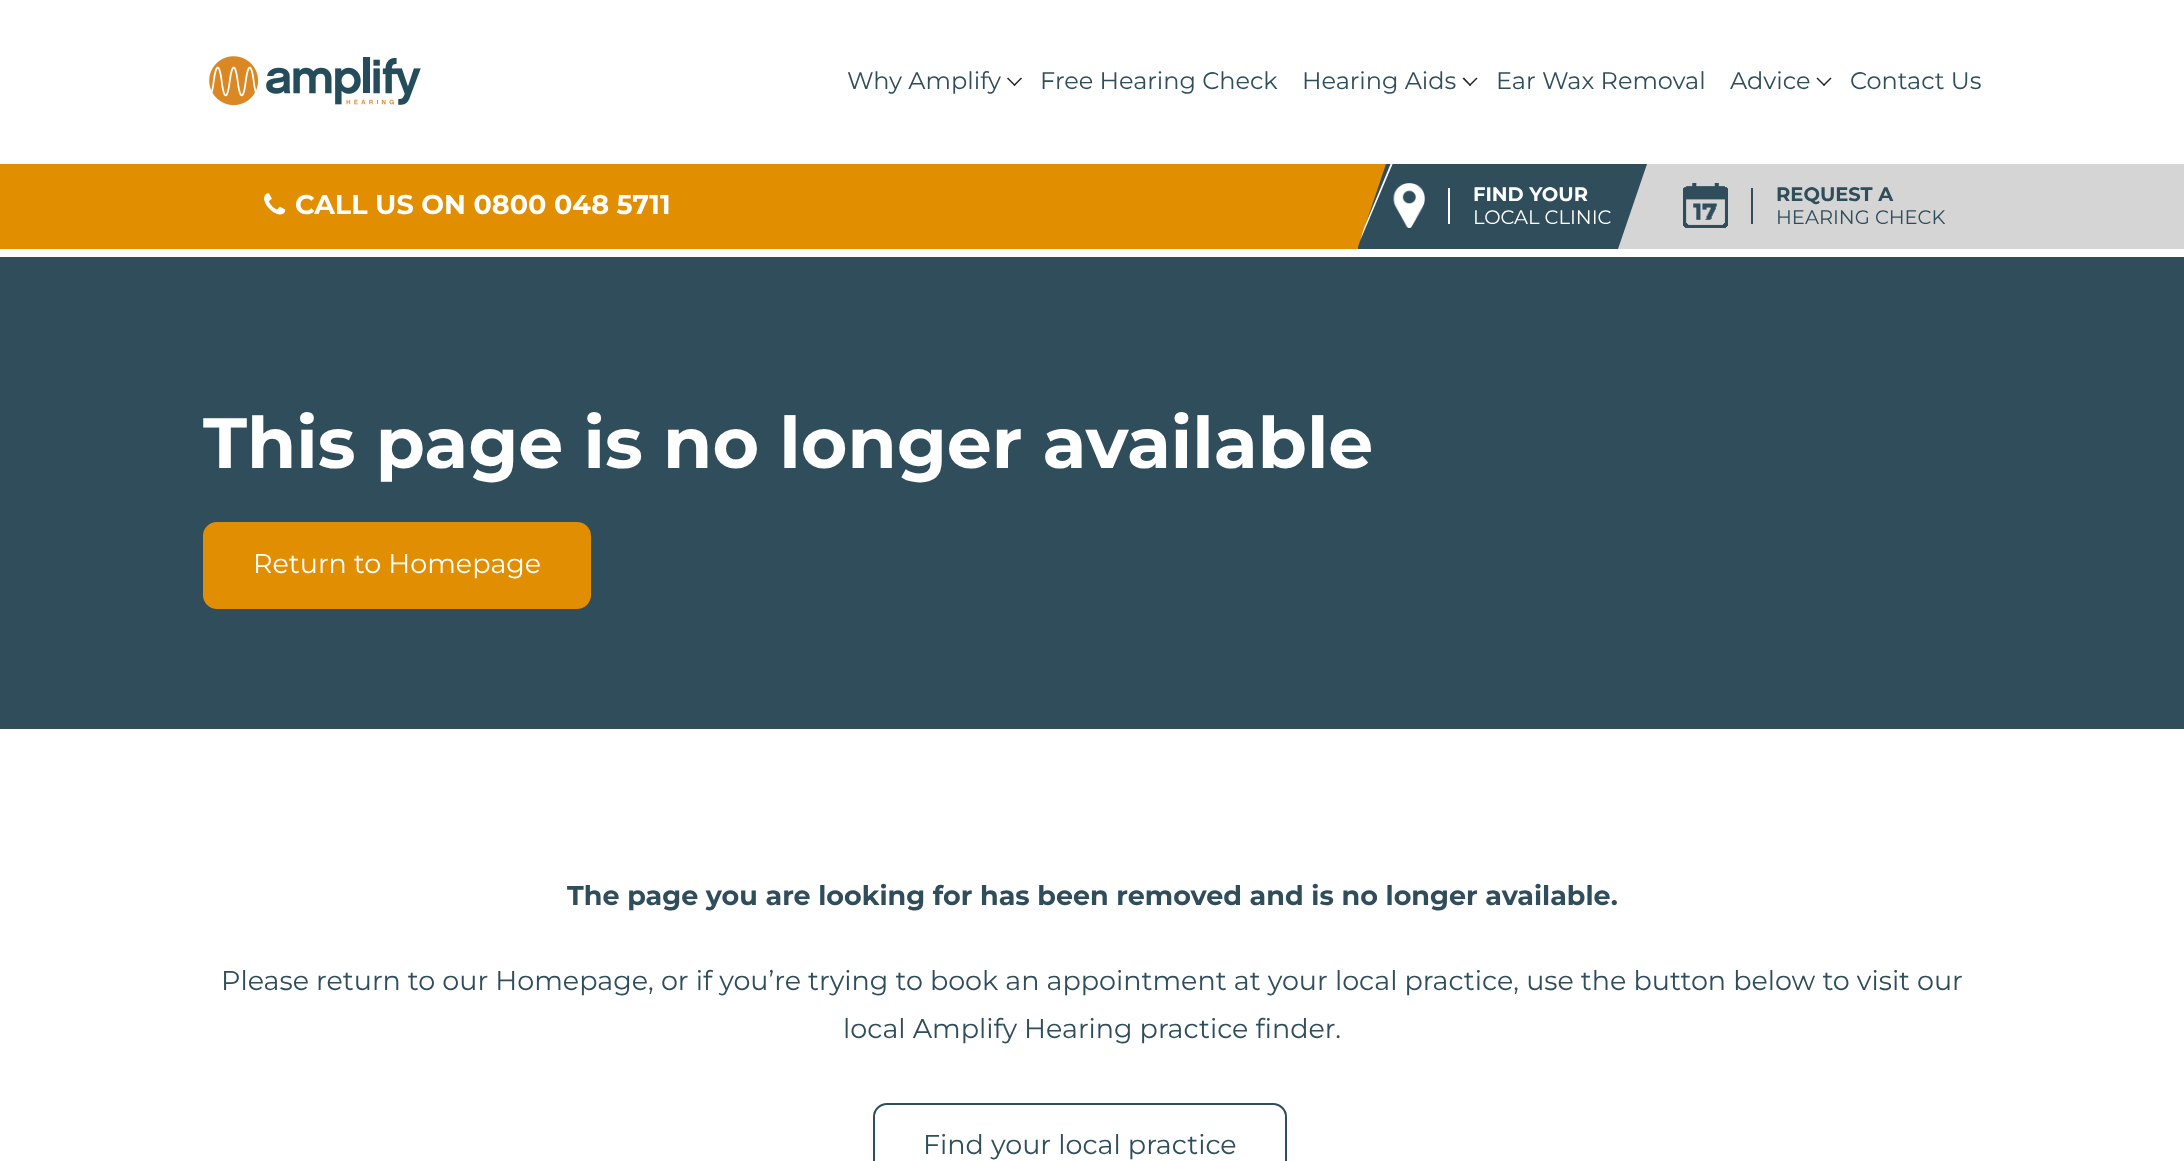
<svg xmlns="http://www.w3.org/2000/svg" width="2184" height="1161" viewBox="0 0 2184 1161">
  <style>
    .t1 { font: 24px Montserrat; fill: #2f4d5b; }
    .t2 { font: bold 27px Montserrat; fill: #fff; }
    .t3 { font: bold 19.5px Montserrat; fill: #fff; }
    .t4 { font: 19.5px Montserrat; fill: #fff; }
    .t5 { font: bold 19.5px Montserrat; fill: #2f4d5b; }
    .t6 { font: 19.5px Montserrat; fill: #2f4d5b; }
    .t7 { font: bold 71.25px Montserrat; fill: #fff; }
    .t8 { font: 27px Montserrat; fill: #fff; }
    .t9 { font: bold 27px Montserrat; fill: #2f4d5b; }
    .t10 { font: 27px Montserrat; fill: #2f4d5b; }
  </style>
  <defs>
    <clipPath id="clip1"><rect x="0" y="164" width="2184" height="85"/></clipPath>
  </defs>
  <rect width="100%" height="100%" fill="#fff"/>
  <image x="209" y="56" width="212" height="50" href="images/1.png"/>
  <text x="847" y="89" class="t1">Why Amplify</text>
  <path d="M1021 77.5L1022 78.5L1014.5 86L1013.5 85Z" fill="#222"/>
  <path d="M1008 77.5L1015.5 85L1014.5 86L1007 78.5Z" fill="#222"/>
  <text x="1040" y="89" class="t1">Free Hearing Check</text>
  <text x="1302" y="89" class="t1">Hearing Aids</text>
  <path d="M1476.5 77.5L1477.5 78.5L1470 86L1469 85Z" fill="#222"/>
  <path d="M1464 77.5L1471 85L1470 86L1462.5 78.5Z" fill="#222"/>
  <text x="1496" y="89" class="t1">Ear Wax Removal</text>
  <text x="1730" y="89" class="t1">Advice</text>
  <path d="M1830.5 77.5L1831.5 78.5L1824 86L1823 85Z" fill="#222"/>
  <path d="M1817.5 77.5L1825 85L1824 86L1816.5 78.5Z" fill="#222"/>
  <text x="1850" y="89" class="t1">Contact Us</text>
  <rect x="0" y="164" width="1386" height="85" fill="#e18e01"/>
  <rect x="1618" y="164" width="566" height="85" fill="#d5d5d5"/>
  <image x="264" y="193" width="22" height="22" href="images/2.png"/>
  <text x="295" y="214" class="t2">CALL US ON 0800 048 5711</text>
  <path d="M1358 247L1386 164H1647L1618 249H1358Z" fill="#2f4d5b"/>
  <g clip-path="url(#clip1)">
    <path d="M1364 228L1391 163H1393L1360 241Z" fill="#fff"/>
  </g>
  <image x="1393" y="183" width="32" height="45" href="images/3.png"/>
  <rect x="1448" y="188" width="2" height="36" fill="#fff"/>
  <text x="1473" y="201" class="t3">FIND YOUR</text>
  <text x="1473" y="224" class="t4">LOCAL CLINIC</text>
  <image x="1683" y="183" width="45" height="45" href="images/4.png"/>
  <rect x="1751" y="188" width="2" height="36" fill="#2f4d5b"/>
  <text x="1776" y="201" class="t5">REQUEST A</text>
  <text x="1776" y="224" class="t6">HEARING CHECK</text>
  <rect x="0" y="257" width="2184" height="472" fill="#2f4d5b"/>
  <text x="203" y="468" class="t7">This page is no longer available</text>
  <rect x="204" y="523" width="386" height="85" rx="13" fill="#e18e02" stroke="#e18e02" stroke-width="2"/>
  <text x="253" y="573" class="t8">Return to Homepage</text>
  <text x="567" y="905" class="t9">The page you are looking for has been removed and is no longer available.</text>
  <text x="221" y="990" class="t10">Please return to our Homepage, or if you’re trying to book an appointment at your local practice, use the button below to visit our</text>
  <text x="843" y="1038" class="t10">local Amplify Hearing practice finder.</text>
  <rect x="874" y="1104" width="412" height="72" rx="13" fill="none" stroke="#2f4d5d" stroke-width="2"/>
  <text x="923" y="1154" class="t10">Find your local practice</text>
</svg>
